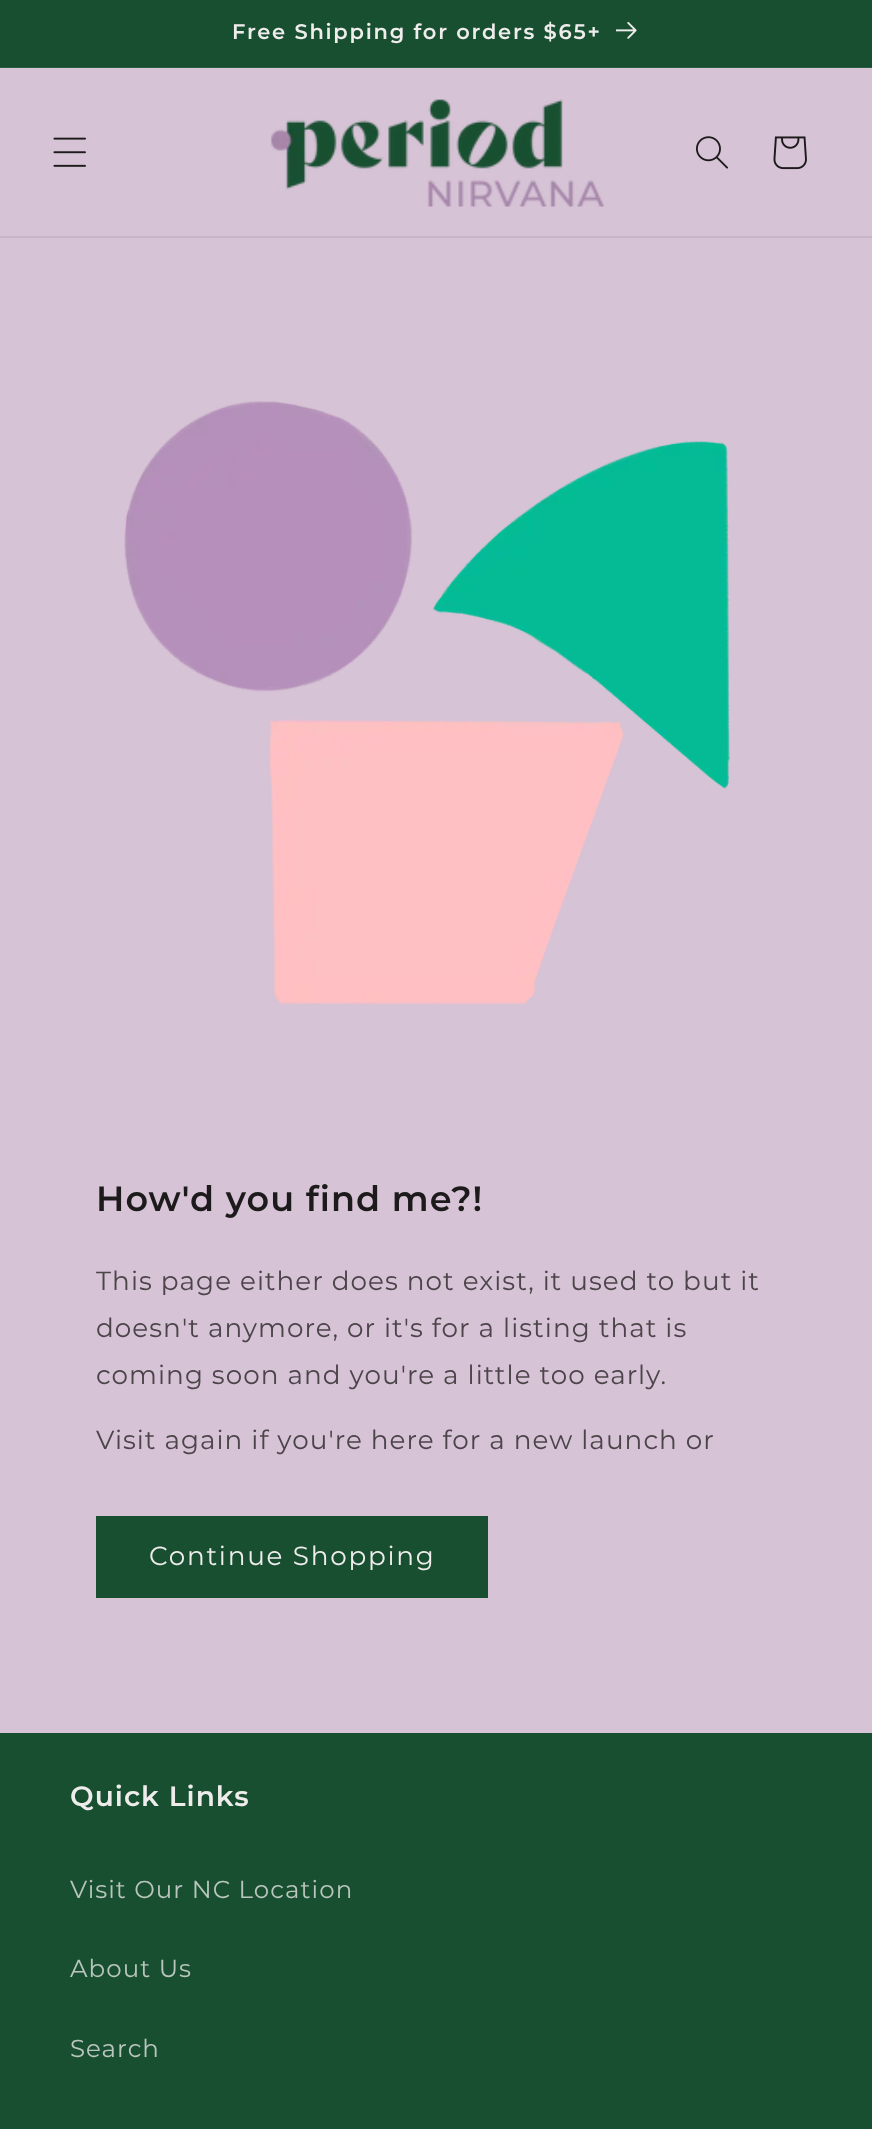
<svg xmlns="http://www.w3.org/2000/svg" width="872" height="2129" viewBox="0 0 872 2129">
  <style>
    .t1 { font: 600 21px Montserrat; letter-spacing: 1.75px; fill: #efecec; }
    .t2 { font: 600 35px Montserrat; letter-spacing: 1.05px; fill: #1c1a1a; }
    .t3 { font: 26.25px Montserrat; letter-spacing: 1.05px; fill: #4b4449; }
    .t4 { font: 26.25px Montserrat; letter-spacing: 1.75px; fill: #efecec; }
    .t5 { font: 600 28px Montserrat; letter-spacing: 1.05px; fill: #efecec; }
    .t6 { font: 24.5px Montserrat; letter-spacing: 1.05px; fill: #b9c5bd; }
  </style>
  <rect width="100%" height="100%" fill="#d7c3d6"/>
  <rect x="0" y="68" width="872" height="1" fill="#d9c6d8"/>
  <rect x="0" y="0" width="872" height="67" fill="#184f31"/>
  <rect x="0" y="67" width="872" height="1" fill="#295c40"/>
  <text x="232" y="39" class="t1">Free Shipping for orders $65+</text>
  <image x="616" y="22" width="21" height="17" href="images/1.png"/>
  <rect x="0" y="236" width="872" height="2" fill="#c8b5c7"/>
  <image x="53" y="137" width="33" height="30" href="images/2.png"/>
  <image x="270" y="99" width="334" height="108" href="images/3.png"/>
  <image x="696" y="136" width="32" height="33" href="images/4.png"/>
  <image x="773" y="136" width="34" height="34" href="images/5.png"/>
  <image x="124" y="401" width="607" height="604" href="images/6.png"/>
  <text x="96" y="1211" class="t2">How'd you find me?!</text>
  <text x="96" y="1290" class="t3">This page either does not exist, it used to but it</text>
  <text x="96" y="1337" class="t3">doesn't anymore, or it's for a listing that is</text>
  <text x="96" y="1384" class="t3">coming soon and you're a little too early.</text>
  <text x="96" y="1449" class="t3">Visit again if you're here for a new launch or</text>
  <rect x="96" y="1516" width="392" height="82" fill="#184f31"/>
  <text x="149" y="1565" class="t4">Continue Shopping</text>
  <rect x="0" y="1733" width="872" height="396" fill="#184f31"/>
  <text x="70" y="1806" class="t5">Quick Links</text>
  <text x="70" y="1898" class="t6">Visit Our NC Location</text>
  <text x="70" y="1977" class="t6">About Us</text>
  <text x="70" y="2057" class="t6">Search</text>
</svg>
